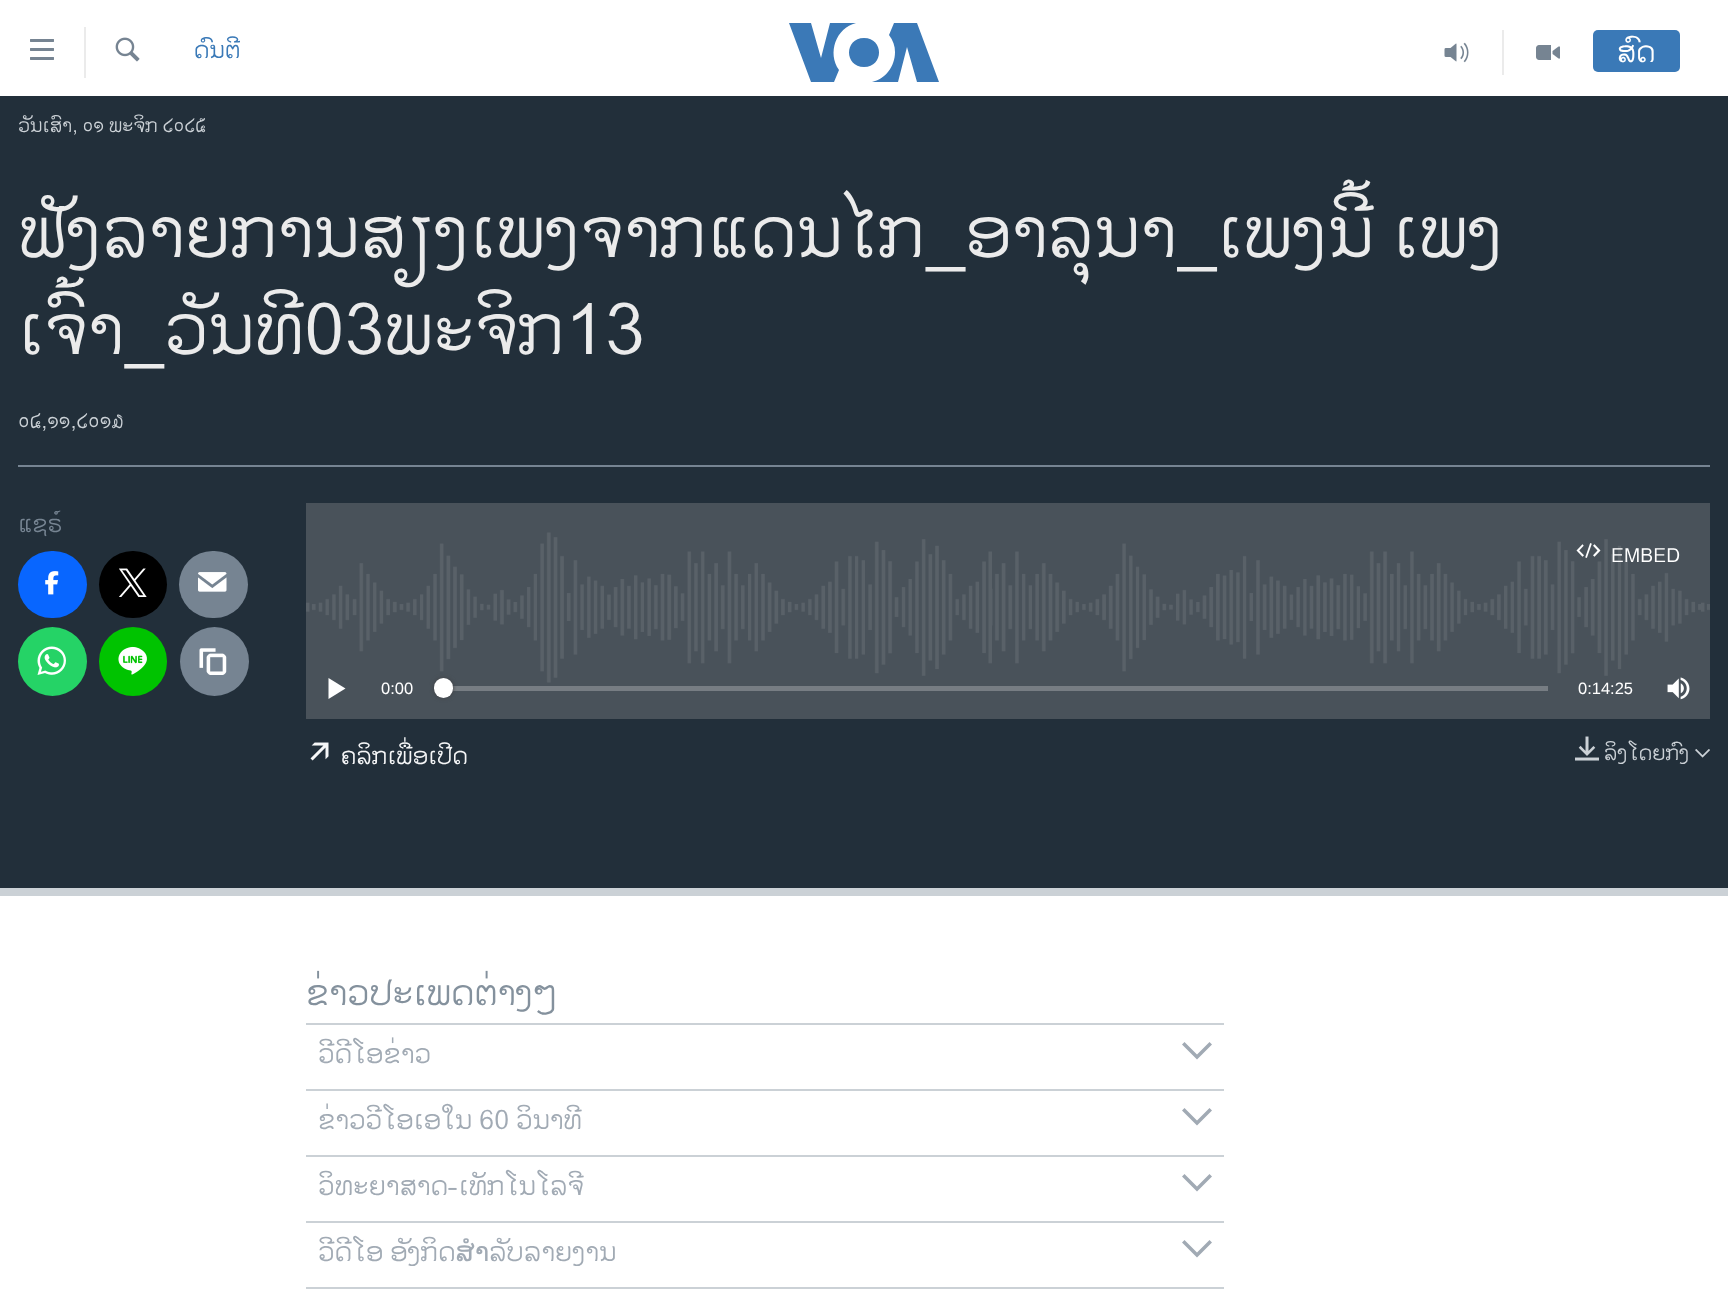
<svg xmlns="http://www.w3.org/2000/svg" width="1728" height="1290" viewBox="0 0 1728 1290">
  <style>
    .t1 { font: 24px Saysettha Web; fill: #3a79b7; }
    .t2 { font: 30px Saysettha Web; fill: #fff; }
    .t3 { font: 19.5px Saysettha Web; fill: #cbd1d6; }
    .t4 { font: 72px Saysettha Web; fill: #ebebeb; }
    .t5 { font: 21px Saysettha Web; fill: #cbd1d6; }
    .t6 { font: 24px Saysettha Web; fill: #768492; }
    .t7 { font: 19.5px Saysettha Web; fill: #fff; }
    .t8 { font: 16.5px Liberation Sans; fill: #fff; }
    .t9 { font: 24px Saysettha Web; fill: #f6f7f8; }
    .t10 { font: 36px Saysettha Web; fill: #84919d; }
    .t11 { font: 27px Saysettha Web; fill: #a1aab4; }
  </style>
  <defs>
    <clipPath id="clip1"><rect x="194" y="35" width="46" height="36"/></clipPath>
  </defs>
  <rect width="100%" height="100%" fill="#fff"/>
  <image x="30" y="39" width="24" height="21" href="images/1.png"/>
  <rect x="84" y="27" width="2" height="51" fill="#ebebeb"/>
  <image x="115" y="37" width="25" height="25" href="images/2.png"/>
  <g clip-path="url(#clip1)">
    <text x="194" y="58" class="t1">ດົນຕີ</text>
  </g>
  <path d="M839 70L834 82H811L789 23H811L821 58L830 23H856C836 28 827 53 839 70ZM864 38C844 38 844 67 864 67C884 67 884 38 864 38ZM895 52C895 67 885 79 872 82H898L907 47L917 82H939L917 23H894L889 35C893 40 895 46 895 52Z" fill="#3b79b7"/>
  <rect x="1502" y="30" width="2" height="45" fill="#ebebeb"/>
  <image x="1444" y="42" width="25" height="21" href="images/3.png"/>
  <image x="1536" y="45" width="24" height="15" href="images/4.png"/>
  <rect x="1593" y="30" width="87" height="42" rx="5" fill="#3a79b7"/>
  <text x="1617" y="62" class="t2">ສົດ</text>
  <rect x="0" y="96" width="1728" height="792" fill="#222f3a"/>
  <text x="18" y="132" class="t3">ວັນເສົາ, ໐໑ ພະຈິກ ໒໐໒໕</text>
  <rect x="0" y="888" width="1728" height="8" fill="#cbd1d6"/>
  <text x="18" y="257" class="t4">ຟັງລາຍການສຽງເພງຈາກແດນໄກ_ອາລຸນາ_ເພງນີ້ ເພງ</text>
  <text x="18" y="354" class="t4">ເຈົ້າ_ວັນທີ03ພະຈິກ13</text>
  <text x="18" y="428" class="t5">໐໔,໑໑,໒໐໑໓</text>
  <rect x="18" y="465" width="1692" height="2" fill="#768492"/>
  <text x="18" y="532" class="t6">ແຊຣ໌</text>
  <rect x="18" y="551" width="69" height="67" rx="33.5" fill="#0866ff"/>
  <image x="45" y="571" width="14" height="24" href="images/5.png"/>
  <rect x="99" y="551" width="68" height="67" rx="33.5" fill="#000"/>
  <image x="119" y="568" width="28" height="29" href="images/6.png"/>
  <rect x="179" y="551" width="69" height="67" rx="33.5" fill="#768492"/>
  <image x="198" y="572" width="29" height="20" href="images/7.png"/>
  <circle cx="52.5" cy="661.5" r="34.5" fill="#25d366"/>
  <image x="37" y="646" width="29" height="29" href="images/8.png"/>
  <rect x="99" y="627" width="68" height="69" rx="34" fill="#00c300"/>
  <image x="118" y="646" width="29" height="29" href="images/9.png"/>
  <circle cx="214.5" cy="661.5" r="34.5" fill="#768492"/>
  <image x="199" y="648" width="28" height="27" href="images/10.png"/>
  <rect x="306" y="503" width="1404" height="216" fill="#49525a"/>
  <image x="306" y="532" width="1404" height="151" href="images/11.png"/>
  <image x="1576" y="543" width="25" height="15" href="images/12.png"/>
  <text x="1611" y="562" class="t7">EMBED</text>
  <path d="M328.5 699L345.5 688.5L328.5 678Z" fill="#fff"/>
  <text x="381" y="694" class="t8">0:00</text>
  <rect x="452" y="686" width="1096" height="5" fill="#777d83"/>
  <rect x="434" y="678" width="19" height="20" rx="9.5" fill="#414144" filter="blur(2px)"/>
  <rect x="434" y="678" width="19" height="20" rx="9.5" fill="#fff"/>
  <text x="1578" y="694" class="t8">0:14:25</text>
  <image x="1667" y="677" width="23" height="23" href="images/13.png"/>
  <image x="310" y="742" width="19" height="19" href="images/14.png"/>
  <text x="341" y="764" class="t9">ຄລິກເພື່ອເປີດ</text>
  <image x="1575" y="736" width="24" height="25" href="images/15.png"/>
  <text x="1604" y="760" class="t5">ລິງໂດຍກົງ</text>
  <image x="1695" y="749" width="15" height="9" href="images/16.png"/>
  <rect x="306" y="1023" width="918" height="2" fill="#cbd1d6"/>
  <text x="306" y="1005" class="t10">ຂ່າວປະເພດຕ່າງໆ</text>
  <rect x="306" y="1089" width="918" height="2" fill="#cbd1d6"/>
  <text x="318" y="1063" class="t11">ວີດີໂອຂ່າວ</text>
  <path d="M1182 1044.5L1197 1059.5L1212 1044.5L1209.5 1042L1197 1054.5L1184.5 1042Z" fill="#a1aab4"/>
  <rect x="306" y="1155" width="918" height="2" fill="#cbd1d6"/>
  <text x="318" y="1129" class="t11">ຂ່າວວີໂອເອໃນ 60 ວິນາທີ</text>
  <path d="M1182 1110.5L1197 1125.5L1212 1110.5L1209.5 1108L1197 1120.5L1184.5 1108Z" fill="#a1aab4"/>
  <rect x="306" y="1221" width="918" height="2" fill="#cbd1d6"/>
  <text x="318" y="1195" class="t11">ວິທະຍາສາດ-ເທັກໂນໂລຈີ</text>
  <path d="M1182 1176.5L1197 1191.5L1212 1176.5L1209.5 1174L1197 1186.5L1184.5 1174Z" fill="#a1aab4"/>
  <rect x="306" y="1287" width="918" height="2" fill="#cbd1d6"/>
  <text x="318" y="1261" class="t11">ວີດີໂອ ອັງກິດສຳລັບລາຍງານ</text>
  <path d="M1182 1242.5L1197 1257.5L1212 1242.5L1209.5 1240L1197 1252.5L1184.5 1240Z" fill="#a1aab4"/>
</svg>
